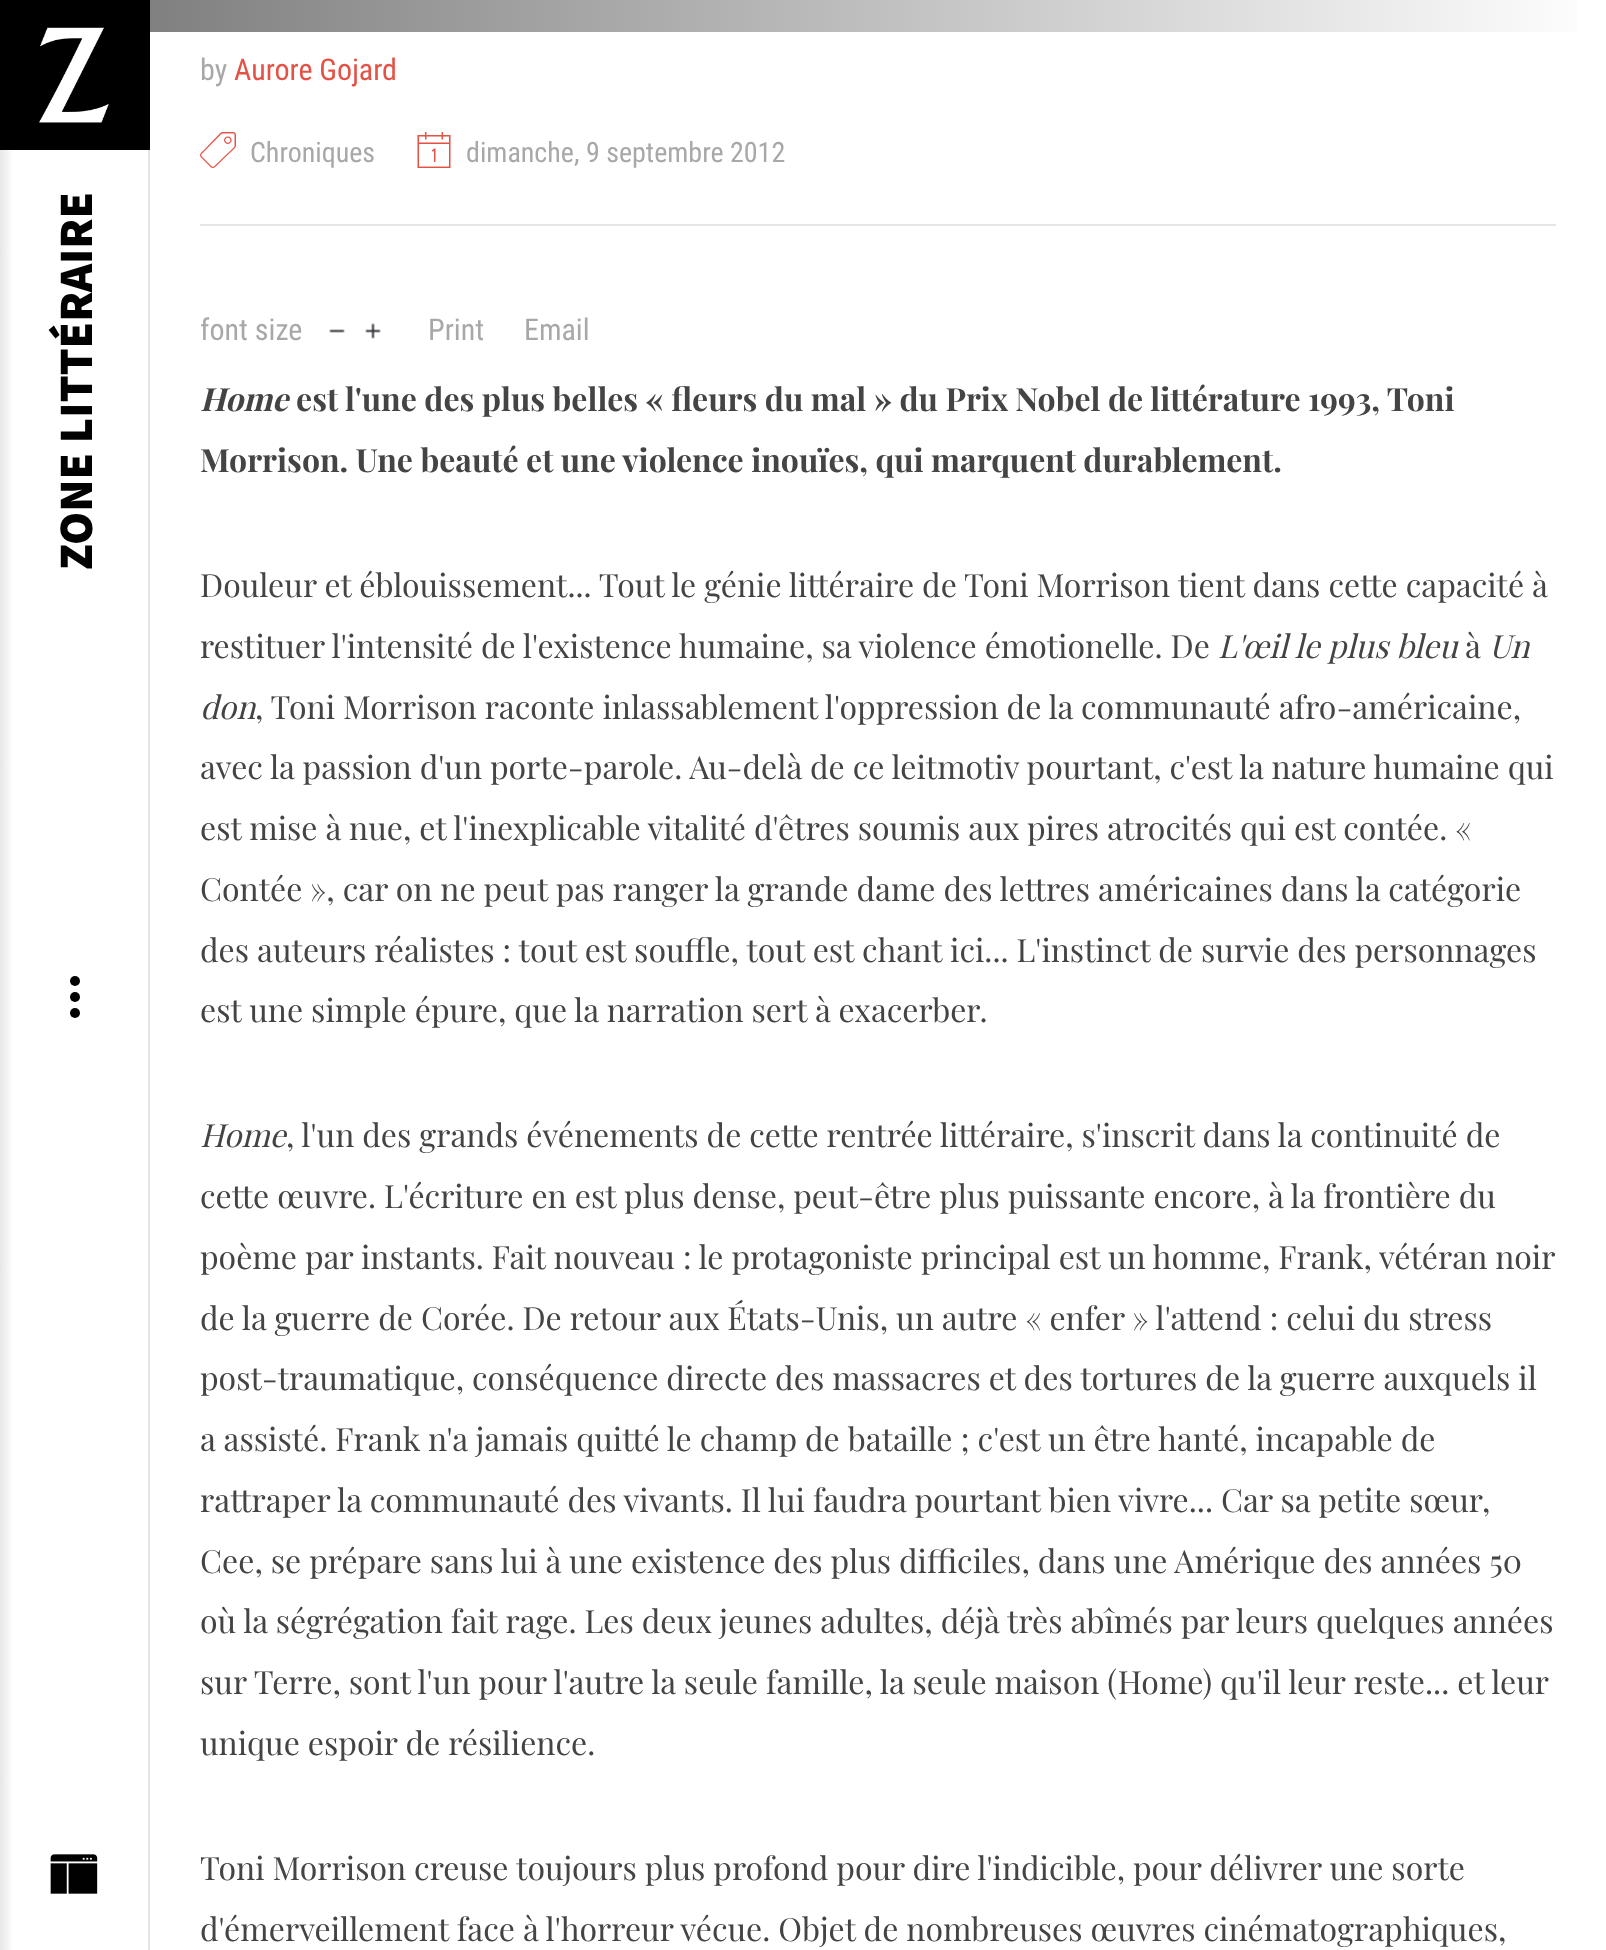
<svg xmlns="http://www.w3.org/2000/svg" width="1606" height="1950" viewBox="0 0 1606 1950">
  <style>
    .t1 { font: 900 48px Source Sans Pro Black; fill: #010101; }
    .t2 { font: 30px Roboto Condensed; fill: #a8a8a8; }
    .t3 { font: 30px Roboto Condensed; fill: #e45245; }
    .t4 { font: 28px Roboto Condensed; fill: #a8a8a8; }
    .t5 { font: italic bold 32px Playfair Display; fill: #444; }
    .t6 { font: bold 32px Playfair Display; fill: #444; }
    .t7 { font: 32px Playfair Display; fill: #444; }
    .t8 { font: italic 32px Playfair Display; fill: #444; }
  </style>
  <defs>
    <linearGradient id="g1" gradientUnits="userSpaceOnUse" x1="0" y1="975" x2="148" y2="975"><stop offset="0" stop-color="#e7e7e7"/><stop offset="0.09" stop-color="#fff"/><stop offset="1" stop-color="#fff"/></linearGradient>
    <linearGradient id="g2" gradientUnits="userSpaceOnUse" x1="1606" y1="16" x2="150" y2="16"><stop offset="0" stop-color="#fff"/><stop offset="1" stop-color="#808080"/></linearGradient>
  </defs>
  <rect width="100%" height="100%" fill="#fff"/>
  <rect x="0" y="150" width="12" height="1800" fill="url(#g1)"/>
  <rect x="148" y="150" width="2" height="1800" fill="#e5e5e5"/>
  <image x="0" y="0" width="150" height="150" href="images/1.png"/>
  <text x="92" y="570" transform="rotate(-90 92 570)" class="t1">ZONE LITTÉRAIRE</text>
  <circle cx="75" cy="981" r="5" fill="#000"/>
  <circle cx="75" cy="997" r="5" fill="#000"/>
  <circle cx="75" cy="1013" r="5" fill="#000"/>
  <image x="50" y="1854" width="48" height="40" href="images/2.png"/>
  <rect x="150" y="0" width="1427" height="32" fill="url(#g2)"/>
  <rect x="200" y="224" width="1356" height="2" fill="#e5e5e5"/>
  <text x="200" y="80" class="t2">by</text>
  <text x="234" y="80" class="t3">Aurore Gojard</text>
  <image x="200" y="132" width="36" height="36" href="images/3.png"/>
  <text x="250" y="162" class="t4">Chroniques</text>
  <image x="417" y="132" width="34" height="36" href="images/4.png"/>
  <text x="466" y="162" class="t4">dimanche, 9 septembre 2012</text>
  <text x="200" y="340" class="t2">font size</text>
  <image x="329" y="329" width="16" height="4" href="images/5.png"/>
  <image x="365" y="323" width="16" height="16" href="images/6.png"/>
  <text x="428" y="340" class="t2">Print</text>
  <text x="524" y="340" class="t2">Email</text>
  <text x="200" y="411" class="t5">Home</text>
  <text x="296" y="411" class="t6">est l'une des plus belles « fleurs du mal » du Prix Nobel de littérature 1993, Toni</text>
  <text x="200" y="472" class="t6">Morrison. Une beauté et une violence inouïes, qui marquent durablement.</text>
  <text x="200" y="597" class="t7">Douleur et éblouissement... Tout le génie littéraire de Toni Morrison tient dans cette capacité à</text>
  <text x="200" y="658" class="t7">restituer l'intensité de l'existence humaine, sa violence émotionelle. De</text>
  <text x="1218" y="658" class="t8">L'œil le plus bleu</text>
  <text x="1465" y="658" class="t7">à</text>
  <text x="1489" y="658" class="t8">Un</text>
  <text x="200" y="719" class="t8">don</text>
  <text x="255" y="719" class="t7">, Toni Morrison raconte inlassablement l'oppression de la communauté afro-américaine,</text>
  <text x="200" y="779" class="t7">avec la passion d'un porte-parole. Au-delà de ce leitmotiv pourtant, c'est la nature humaine qui</text>
  <text x="200" y="840" class="t7">est mise à nue, et l'inexplicable vitalité d'êtres soumis aux pires atrocités qui est contée. «</text>
  <text x="200" y="901" class="t7">Contée », car on ne peut pas ranger la grande dame des lettres américaines dans la catégorie</text>
  <text x="200" y="962" class="t7">des auteurs réalistes : tout est souffle, tout est chant ici... L'instinct de survie des personnages</text>
  <text x="200" y="1022" class="t7">est une simple épure, que la narration sert à exacerber.</text>
  <text x="200" y="1147" class="t8">Home</text>
  <text x="286" y="1147" class="t7">, l'un des grands événements de cette rentrée littéraire, s'inscrit dans la continuité de</text>
  <text x="200" y="1208" class="t7">cette œuvre. L'écriture en est plus dense, peut-être plus puissante encore, à la frontière du</text>
  <text x="200" y="1269" class="t7">poème par instants. Fait nouveau : le protagoniste principal est un homme, Frank, vétéran noir</text>
  <text x="200" y="1330" class="t7">de la guerre de Corée. De retour aux États-Unis, un autre « enfer » l'attend : celui du stress</text>
  <text x="200" y="1390" class="t7">post-traumatique, conséquence directe des massacres et des tortures de la guerre auxquels il</text>
  <text x="200" y="1451" class="t7">a assisté. Frank n'a jamais quitté le champ de bataille ; c'est un être hanté, incapable de</text>
  <text x="200" y="1512" class="t7">rattraper la communauté des vivants. Il lui faudra pourtant bien vivre... Car sa petite sœur,</text>
  <text x="200" y="1573" class="t7">Cee, se prépare sans lui à une existence des plus difficiles, dans une Amérique des années 50</text>
  <text x="200" y="1633" class="t7">où la ségrégation fait rage. Les deux jeunes adultes, déjà très abîmés par leurs quelques années</text>
  <text x="200" y="1694" class="t7">sur Terre, sont l'un pour l'autre la seule famille, la seule maison (Home) qu'il leur reste... et leur</text>
  <text x="200" y="1755" class="t7">unique espoir de résilience.</text>
  <text x="200" y="1880" class="t7">Toni Morrison creuse toujours plus profond pour dire l'indicible, pour délivrer une sorte</text>
  <text x="200" y="1941" class="t7">d'émerveillement face à l'horreur vécue. Objet de nombreuses œuvres cinématographiques,</text>
</svg>
